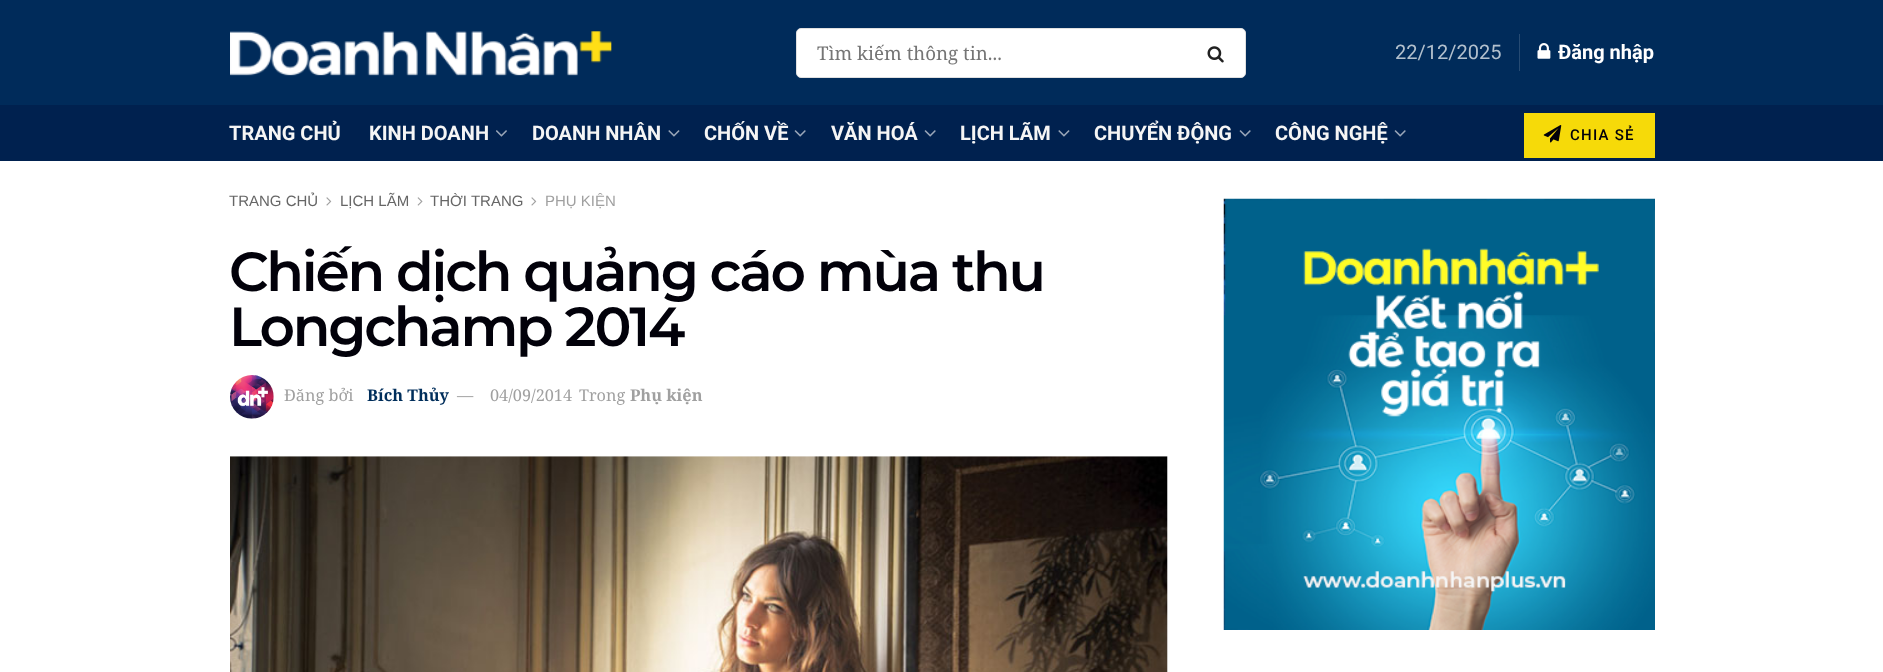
<svg xmlns="http://www.w3.org/2000/svg" width="1883" height="672" viewBox="0 0 1883 672">
  <style>
    .t1 { font: 18.75px Noto Serif; fill: #757575; }
    .t2 { font: 20px Roboto; fill: #b2c0cd; }
    .t3 { font: bold 20px Roboto; fill: #fff; }
    .t4 { font: bold 20px Roboto; fill: #f5f5f5; }
    .t5 { font: 500 15px Roboto; letter-spacing: 1.25px; fill: #02010a; }
    .t6 { font: 15px Liberation Sans; fill: #666; }
    .t7 { font: 15px Liberation Sans; fill: #a0a0a0; }
    .t8 { font: 600 55px Montserrat; letter-spacing: -2.2px; fill: #02010a; }
    .t9 { font: 16.25px Noto Serif; fill: #a0a0a0; }
    .t10 { font: bold 16.25px Noto Serif; fill: #002e5b; }
    .t11 { font: bold 16.25px Noto Serif; fill: #a0a0a0; }
  </style>
  <rect width="100%" height="100%" fill="#fff"/>
  <rect x="0" y="0" width="1883" height="105" fill="#002b5a"/>
  <image x="230" y="31" width="382" height="45" href="images/1.png"/>
  <rect x="796.5" y="28.5" width="449" height="49" rx="4.5" fill="#fff" stroke="#e0e0e0"/>
  <text x="817" y="60" class="t1">Tìm kiếm thông tin...</text>
  <image x="1207" y="46" width="17" height="17" href="images/2.png"/>
  <text x="1395" y="59" class="t2">22/12/2025</text>
  <rect x="1519" y="34" width="1" height="37" fill="#264b73"/>
  <image x="1537" y="43" width="14" height="16" href="images/3.png"/>
  <text x="1558" y="59" class="t3">Đăng nhập</text>
  <rect x="0" y="105" width="1883" height="56" fill="#00214f"/>
  <text x="229" y="140" class="t4">TRANG CHỦ</text>
  <text x="369" y="140" class="t4">KINH DOANH</text>
  <image x="496" y="130" width="11" height="7" href="images/4.png"/>
  <text x="532" y="140" class="t4">DOANH NHÂN</text>
  <image x="668" y="130" width="12" height="7" href="images/5.png"/>
  <text x="704" y="140" class="t4">CHỐN VỀ</text>
  <image x="794" y="130" width="12" height="7" href="images/6.png"/>
  <text x="831" y="140" class="t4">VĂN HOÁ</text>
  <image x="924" y="130" width="12" height="7" href="images/6.png"/>
  <text x="960" y="140" class="t4">LỊCH LÃM</text>
  <image x="1058" y="130" width="12" height="7" href="images/5.png"/>
  <text x="1094" y="140" class="t4">CHUYỂN ĐỘNG</text>
  <image x="1239" y="130" width="12" height="7" href="images/6.png"/>
  <text x="1275" y="140" class="t4">CÔNG NGHỆ</text>
  <image x="1394" y="130" width="12" height="7" href="images/6.png"/>
  <rect x="1524" y="113" width="131" height="45" fill="#f6da09"/>
  <image x="1543" y="125" width="19" height="18" href="images/7.png"/>
  <text x="1570" y="140" class="t5">CHIA SẺ</text>
  <text x="229" y="206" class="t6">TRANG CHỦ</text>
  <image x="326" y="197" width="6" height="9" href="images/8.png"/>
  <text x="340" y="206" class="t6">LỊCH LÃM</text>
  <image x="417" y="197" width="6" height="9" href="images/9.png"/>
  <text x="430" y="206" class="t6">THỜI TRANG</text>
  <image x="531" y="197" width="6" height="9" href="images/8.png"/>
  <text x="545" y="206" class="t7">PHỤ KIỆN</text>
  <text x="229" y="291" class="t8">Chiến dịch quảng cáo mùa thu</text>
  <text x="229" y="346" class="t8">Longchamp 2014</text>
  <image x="230" y="375" width="44" height="44" href="images/10.png"/>
  <text x="284" y="401" class="t9">Đăng bởi</text>
  <text x="367" y="401" class="t10">Bích Thủy</text>
  <text x="457" y="401" class="t9">—</text>
  <text x="490" y="401" class="t9">04/09/2014</text>
  <text x="579" y="401" class="t9">Trong</text>
  <text x="630" y="401" class="t11">Phụ kiện</text>
  <rect x="230" y="456" width="938" height="216" fill="#f7f7f7"/>
  <image x="230" y="456" width="938" height="216" href="images/11.png"/>
  <image x="1223" y="198" width="432" height="432" href="images/12.png"/>
</svg>
